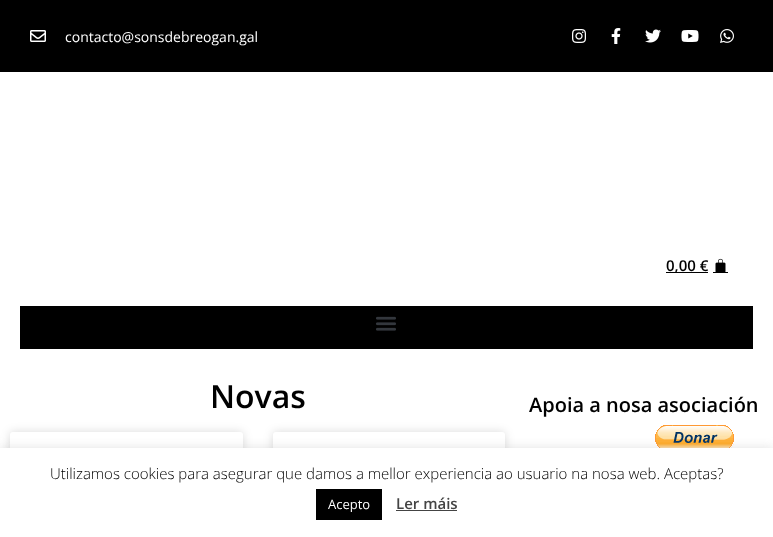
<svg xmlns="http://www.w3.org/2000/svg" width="773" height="537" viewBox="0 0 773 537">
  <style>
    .t1 { font: 14px Open Sans; fill: #fff; }
    .t2 { font: 600 15px Open Sans; fill: #000; }
    .t3 { font: 600 32px Open Sans; fill: #000; }
    .t4 { font: 600 20px Open Sans; fill: #000; }
    .t5 { font: 300 15px Open Sans; fill: #000; }
    .t6 { font: 13px Open Sans; fill: #fff; }
    .t7 { font: 600 15px Open Sans; fill: #444; }
  </style>
  <rect width="100%" height="100%" fill="#fff"/>
  <rect x="0" y="0" width="773" height="72" fill="#000"/>
  <image x="30" y="30" width="16" height="12" href="images/1.png"/>
  <text x="65" y="42" class="t1">contacto@sonsdebreogan.gal</text>
  <image x="572" y="29" width="14" height="14" href="images/2.png"/>
  <image x="611" y="28" width="10" height="16" href="images/3.png"/>
  <image x="645" y="29" width="16" height="14" href="images/4.png"/>
  <image x="681" y="30" width="18" height="12" href="images/5.png"/>
  <image x="720" y="29" width="14" height="14" href="images/6.png"/>
  <rect x="666" y="272" width="42" height="1" fill="#000"/>
  <text x="666" y="271" class="t2">0,00 €</text>
  <image x="715" y="258" width="11" height="14" href="images/7.png"/>
  <rect x="713" y="272" width="15" height="1" fill="#000"/>
  <rect x="20" y="306" width="733" height="43" fill="#000"/>
  <image x="376" y="316" width="20" height="15" href="images/8.png"/>
  <text x="210" y="408" class="t3">Novas</text>
  <rect x="10" y="432" width="233" height="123" rx="3" fill="#00000026" filter="blur(5px)"/>
  <rect x="10" y="432" width="233" height="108" rx="3" fill="#fff"/>
  <rect x="273" y="432" width="232" height="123" rx="3" fill="#00000026" filter="blur(5px)"/>
  <rect x="273" y="432" width="232" height="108" rx="3" fill="#fff"/>
  <text x="529" y="412" class="t4">Apoia a nosa asociación</text>
  <image x="655" y="425" width="79" height="23" href="images/9.png"/>
  <rect x="0" y="447" width="773" height="89" fill="#acabab4d" filter="blur(5px)"/>
  <rect x="0" y="448" width="773" height="89" fill="#fff"/>
  <text x="50" y="479" class="t5">Utilizamos cookies para asegurar que damos a mellor experiencia ao usuario na nosa web. Aceptas?</text>
  <rect x="316" y="489" width="66" height="31" fill="#000"/>
  <text x="328" y="509" class="t6">Acepto</text>
  <text x="396" y="509" class="t7">Ler máis</text>
  <rect x="396" y="510" width="61" height="1" fill="#444"/>
</svg>
